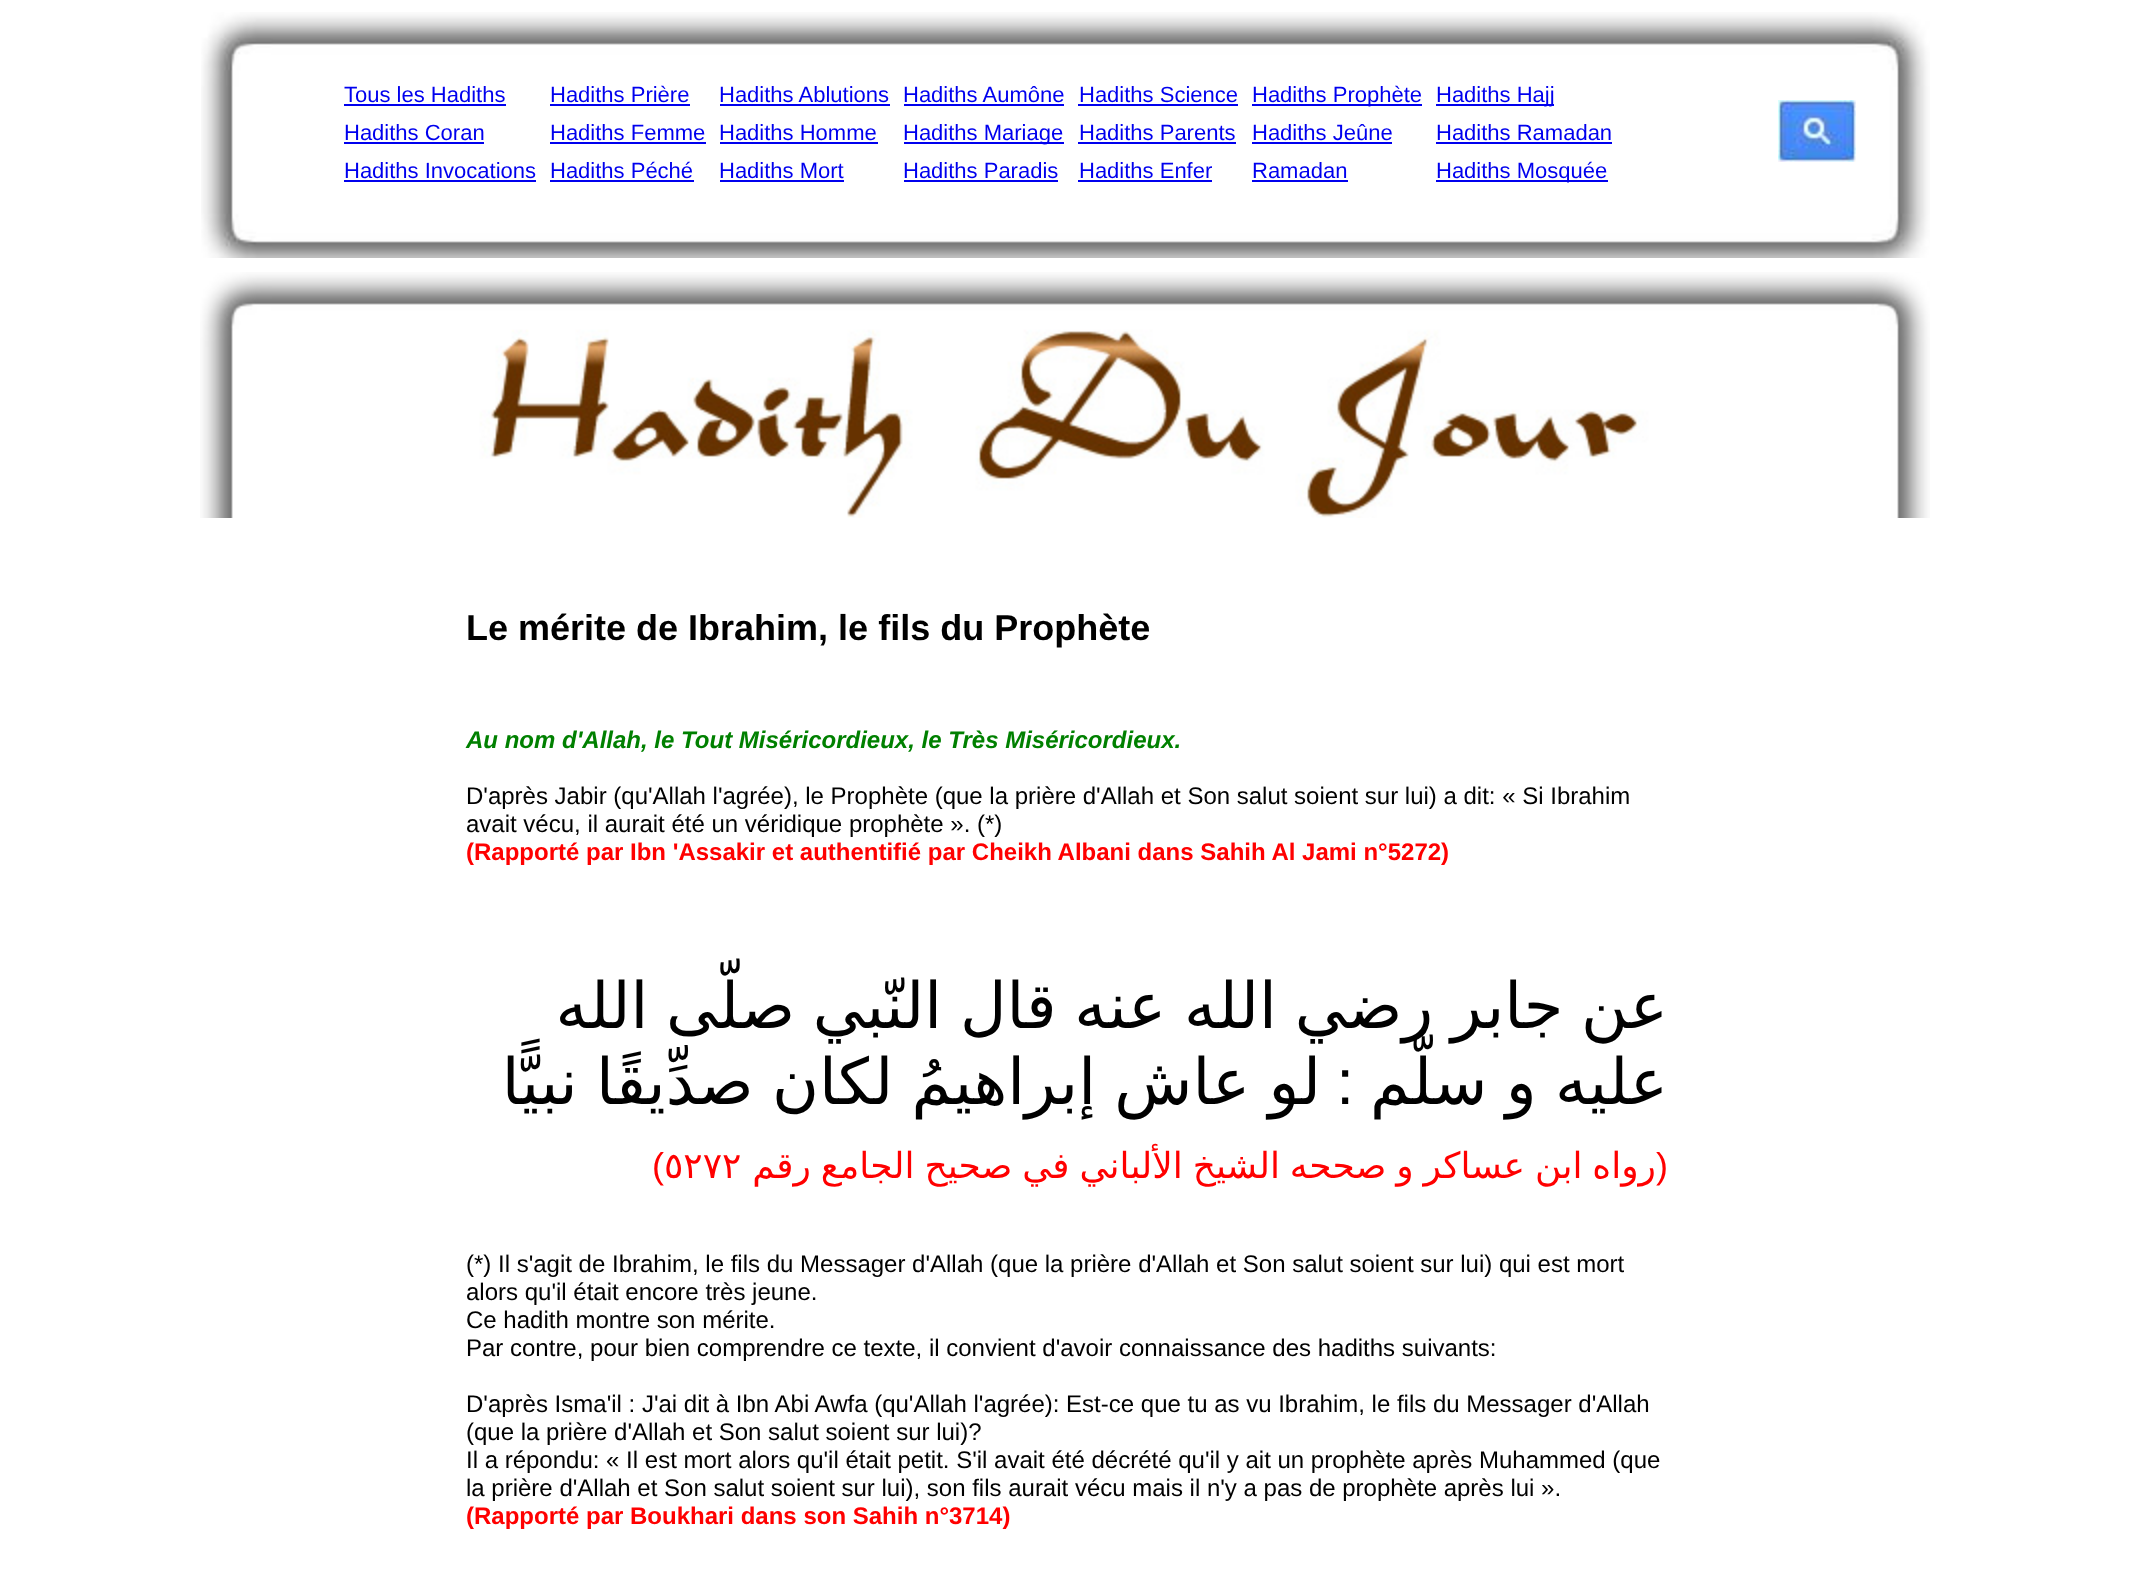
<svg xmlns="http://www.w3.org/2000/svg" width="2134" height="1587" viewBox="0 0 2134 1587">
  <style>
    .t1 { font: 22px Liberation Sans; fill: #00e; }
    .t2 { font: bold 36px Liberation Sans; fill: #000; }
    .t3 { font: italic bold 24px Liberation Sans; fill: #008000; }
    .t4 { font: 24px Liberation Sans; fill: #000; }
    .t5 { font: bold 24px Liberation Sans; fill: #f00; }
    .t6 { font: 64px DejaVu Sans; direction: rtl; fill: #000; }
    .t7 { font: 64px Liberation Sans; direction: rtl; fill: #000; }
    .t8 { font: 36px Liberation Sans; fill: #f00; }
    .t9 { font: 36px DejaVu Sans; direction: rtl; fill: #f00; }
    .t10 { font: 36px DejaVu Sans; fill: #f00; }
  </style>
  <rect width="100%" height="100%" fill="#fff"/>
  <image x="201" y="12" width="1729" height="246" href="images/1.png"/>
  <text x="344" y="102" class="t1">Tous les Hadiths</text>
  <rect x="344" y="104" width="162" height="2" fill="#00e"/>
  <text x="550" y="102" class="t1">Hadiths Prière</text>
  <rect x="550" y="104" width="140" height="2" fill="#00e"/>
  <text x="719" y="102" class="t1">Hadiths Ablutions</text>
  <rect x="720" y="104" width="170" height="2" fill="#00e"/>
  <text x="903" y="102" class="t1">Hadiths Aumône</text>
  <rect x="904" y="104" width="160" height="2" fill="#00e"/>
  <text x="1079" y="102" class="t1">Hadiths Science</text>
  <rect x="1078" y="104" width="160" height="2" fill="#00e"/>
  <rect x="1252" y="104" width="170" height="2" fill="#00e"/>
  <text x="1252" y="102" class="t1">Hadiths Prophète</text>
  <rect x="1436" y="104" width="118" height="2" fill="#00e"/>
  <text x="1436" y="102" class="t1">Hadiths Hajj</text>
  <text x="344" y="140" class="t1">Hadiths Coran</text>
  <rect x="344" y="142" width="140" height="2" fill="#00e"/>
  <text x="550" y="140" class="t1">Hadiths Femme</text>
  <rect x="550" y="142" width="156" height="2" fill="#00e"/>
  <text x="719" y="140" class="t1">Hadiths Homme</text>
  <rect x="720" y="142" width="158" height="2" fill="#00e"/>
  <rect x="904" y="142" width="160" height="2" fill="#00e"/>
  <text x="903" y="140" class="t1">Hadiths Mariage</text>
  <text x="1079" y="140" class="t1">Hadiths Parents</text>
  <rect x="1078" y="142" width="158" height="2" fill="#00e"/>
  <text x="1252" y="140" class="t1">Hadiths Jeûne</text>
  <rect x="1252" y="142" width="140" height="2" fill="#00e"/>
  <text x="1436" y="140" class="t1">Hadiths Ramadan</text>
  <rect x="1436" y="142" width="176" height="2" fill="#00e"/>
  <text x="344" y="178" class="t1">Hadiths Invocations</text>
  <rect x="344" y="180" width="192" height="2" fill="#00e"/>
  <text x="550" y="178" class="t1">Hadiths Péché</text>
  <rect x="550" y="180" width="144" height="2" fill="#00e"/>
  <text x="719" y="178" class="t1">Hadiths Mort</text>
  <rect x="720" y="180" width="124" height="2" fill="#00e"/>
  <text x="903" y="178" class="t1">Hadiths Paradis</text>
  <rect x="904" y="180" width="154" height="2" fill="#00e"/>
  <text x="1079" y="178" class="t1">Hadiths Enfer</text>
  <rect x="1078" y="180" width="134" height="2" fill="#00e"/>
  <text x="1252" y="178" class="t1">Ramadan</text>
  <rect x="1252" y="180" width="96" height="2" fill="#00e"/>
  <rect x="1436" y="180" width="172" height="2" fill="#00e"/>
  <text x="1436" y="178" class="t1">Hadiths Mosquée</text>
  <image x="1778" y="100" width="78" height="62" href="images/2.png"/>
  <image x="200" y="272" width="1730" height="246" href="images/3.png"/>
  <text x="466" y="640" class="t2">Le mérite de Ibrahim, le fils du Prophète</text>
  <text x="466" y="748" class="t3">Au nom d'Allah, le Tout Miséricordieux, le Très Miséricordieux.</text>
  <text x="466" y="804" class="t4">D'après Jabir (qu'Allah l'agrée), le Prophète (que la prière d'Allah et Son salut soient sur lui) a dit: « Si Ibrahim</text>
  <text x="466" y="832" class="t4">avait vécu, il aurait été un véridique prophète ». (*)</text>
  <text x="466" y="860" class="t5">(Rapporté par Ibn 'Assakir et authentifié par Cheikh Albani dans Sahih Al Jami n°5272)</text>
  <text x="1668" y="1028" word-spacing="-2.5" class="t6">عن جابر رضي الله عنه قال النّبي صلّى الله</text>
  <text x="1321" y="1104" word-spacing="-2" class="t6">لو عاش إبراهيمُ لكان صدِّيقًا نبيًّا</text>
  <text x="1354" y="1104" class="t7">:</text>
  <text x="1668" y="1104" word-spacing="-2" class="t6">عليه و سلّم</text>
  <text x="652" y="1178" class="t8">(</text>
  <text x="1656" y="1178" word-spacing="-1.5" class="t9">رواه ابن عساكر و صححه الشيخ الألباني في صحيح الجامع رقم</text>
  <text x="664" y="1178" class="t10">٥٢٧٢</text>
  <text x="1656" y="1178" class="t8">)</text>
  <text x="466" y="1272" class="t4">(*) Il s'agit de Ibrahim, le fils du Messager d'Allah (que la prière d'Allah et Son salut soient sur lui) qui est mort</text>
  <text x="466" y="1300" class="t4">alors qu'il était encore très jeune.</text>
  <text x="466" y="1328" class="t4">Ce hadith montre son mérite.</text>
  <text x="466" y="1356" class="t4">Par contre, pour bien comprendre ce texte, il convient d'avoir connaissance des hadiths suivants:</text>
  <text x="466" y="1412" class="t4">D'après Isma'il : J'ai dit à Ibn Abi Awfa (qu'Allah l'agrée): Est-ce que tu as vu Ibrahim, le fils du Messager d'Allah</text>
  <text x="466" y="1440" class="t4">(que la prière d'Allah et Son salut soient sur lui)?</text>
  <text x="466" y="1468" class="t4">Il a répondu: « Il est mort alors qu'il était petit. S'il avait été décrété qu'il y ait un prophète après Muhammed (que</text>
  <text x="466" y="1496" class="t4">la prière d'Allah et Son salut soient sur lui), son fils aurait vécu mais il n'y a pas de prophète après lui ».</text>
  <text x="466" y="1524" class="t5">(Rapporté par Boukhari dans son Sahih n°3714)</text>
</svg>
